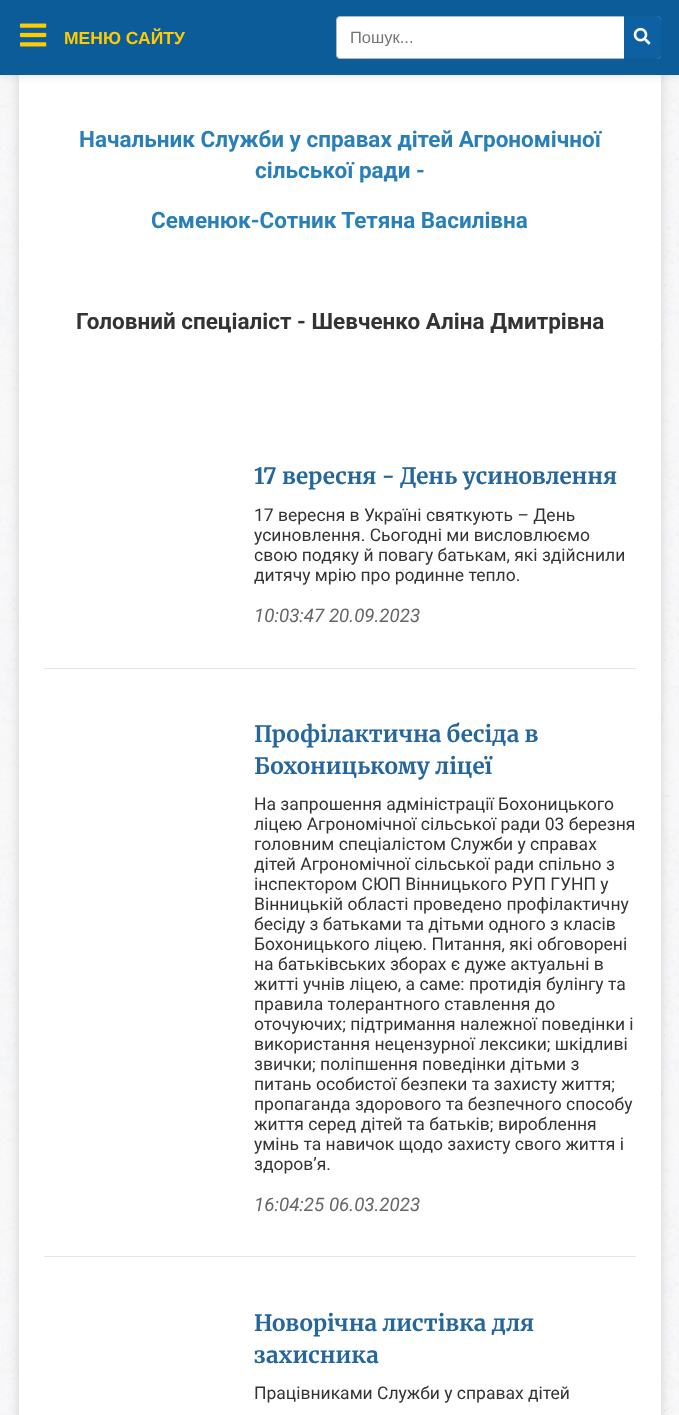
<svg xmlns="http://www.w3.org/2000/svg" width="679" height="1415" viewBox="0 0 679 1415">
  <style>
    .t1 { font: bold 17.5px Liberation Sans; fill: #fc0; }
    .t2 { font: bold 22.5px Roboto; fill: #2980b9; }
    .t3 { font: bold 22.5px Roboto; fill: #333; }
    .t4 { font: 300 22.5px Merriweather; fill: #25669c; }
    .t5 { font: 17.5px Roboto; fill: #333; }
    .t6 { font: italic 18.75px Roboto; fill: #666; }
    .t7 { font: 16.5px Liberation Sans; fill: #757575; }
  </style>
  <defs>
    <clipPath id="clip1"><rect x="350" y="28" width="260" height="18"/></clipPath>
  </defs>
  <rect width="100%" height="100%" fill="#fff"/>
  <image x="0" y="75" width="679" height="1340" href="images/1.png"/>
  <rect x="19" y="-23" width="642" height="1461" rx="5" fill="#00000026" filter="blur(6px)"/>
  <rect x="19" y="75" width="642" height="1340" fill="#fff"/>
  <rect x="0" y="1" width="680" height="75" fill="#0000001a" filter="blur(4.5px)"/>
  <rect x="0" y="0" width="679" height="75" fill="#0c5c99"/>
  <image x="20" y="23" width="27" height="24" href="images/2.png"/>
  <text x="64" y="44" class="t1">МЕНЮ САЙТУ</text>
  <text x="79" y="147" class="t2">Начальник Служби у справах дітей Агрономічної</text>
  <text x="255" y="178" class="t2">сільської ради -</text>
  <text x="151" y="228" class="t2">Семенюк-Сотник Тетяна Василівна</text>
  <text x="76" y="329" class="t3">Головний спеціаліст - Шевченко Аліна Дмитрівна</text>
  <rect x="44" y="668" width="592" height="1" fill="#e5e5e5"/>
  <text x="254" y="484" class="t4">17 вересня - День усиновлення</text>
  <text x="254" y="521" class="t5">17 вересня в Україні святкують – День</text>
  <text x="254" y="541" class="t5">усиновлення. Сьогодні ми висловлюємо</text>
  <text x="254" y="561" class="t5">свою подяку й повагу батькам, які здійснили</text>
  <text x="254" y="581" class="t5">дитячу мрію про родинне тепло.</text>
  <text x="254" y="622" class="t6">10:03:47 20.09.2023</text>
  <rect x="44" y="1256" width="592" height="1" fill="#e5e5e5"/>
  <text x="254" y="742" class="t4">Профілактична бесіда в</text>
  <text x="254" y="774" class="t4">Бохоницькому ліцеї</text>
  <text x="254" y="810" class="t5">На запрошення адміністрації Бохоницького</text>
  <text x="254" y="830" class="t5">ліцею Агрономічної сільської ради 03 березня</text>
  <text x="254" y="850" class="t5">головним спеціалістом Служби у справах</text>
  <text x="254" y="870" class="t5">дітей Агрономічної сільської ради спільно з</text>
  <text x="254" y="890" class="t5">інспектором СЮП Вінницького РУП ГУНП у</text>
  <text x="254" y="910" class="t5">Вінницькій області проведено профілактичну</text>
  <text x="254" y="930" class="t5">бесіду з батьками та дітьми одного з класів</text>
  <text x="254" y="950" class="t5">Бохоницького ліцею. Питання, які обговорені</text>
  <text x="254" y="970" class="t5">на батьківських зборах є дуже актуальні в</text>
  <text x="254" y="990" class="t5">житті учнів ліцею, а саме: протидія булінгу та</text>
  <text x="254" y="1010" class="t5">правила толерантного ставлення до</text>
  <text x="254" y="1030" class="t5">оточуючих; підтримання належної поведінки і</text>
  <text x="254" y="1050" class="t5">використання нецензурної лексики; шкідливі</text>
  <text x="254" y="1070" class="t5">звички; поліпшення поведінки дітьми з</text>
  <text x="254" y="1090" class="t5">питань особистої безпеки та захисту життя;</text>
  <text x="254" y="1110" class="t5">пропаганда здорового та безпечного способу</text>
  <text x="254" y="1130" class="t5">життя серед дітей та батьків; вироблення</text>
  <text x="254" y="1150" class="t5">умінь та навичок щодо захисту свого життя і</text>
  <text x="254" y="1170" class="t5">здоров’я.</text>
  <text x="254" y="1211" class="t6">16:04:25 06.03.2023</text>
  <text x="254" y="1331" class="t4">Новорічна листівка для</text>
  <text x="254" y="1363" class="t4">захисника</text>
  <text x="254" y="1399" class="t5">Працівниками Служби у справах дітей</text>
  <rect x="336.5" y="16.5" width="324" height="42" rx="3.5" fill="#fff" stroke="#b7b7b7"/>
  <g clip-path="url(#clip1)">
    <text x="350" y="43" class="t7">Пошук...</text>
  </g>
  <path d="M624 16H657C659 16 661 18 661 20V55C661 57 659 59 657 59H624Z" fill="#0d61a2"/>
  <image x="633" y="27" width="18" height="18" href="images/3.png"/>
</svg>
